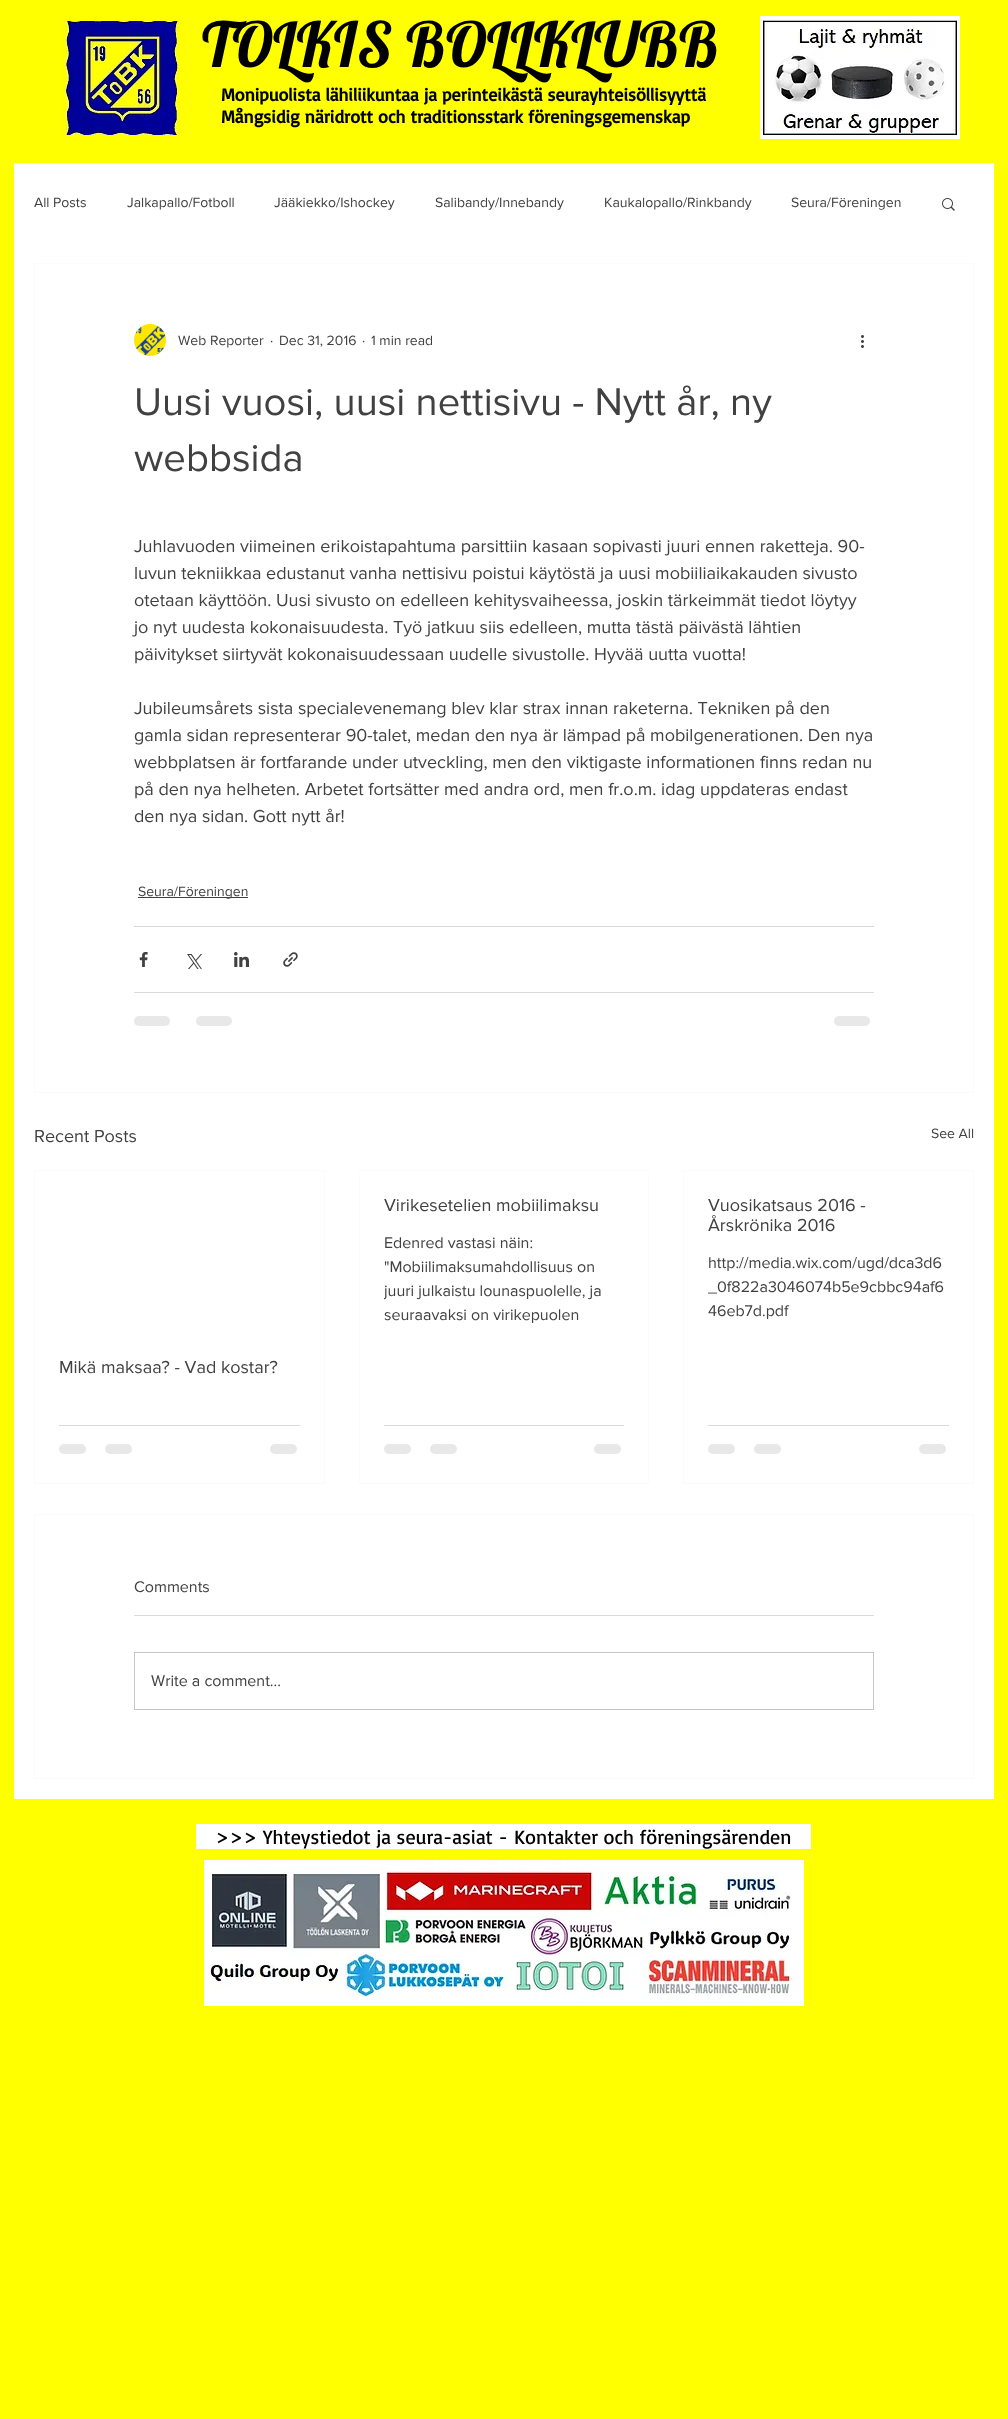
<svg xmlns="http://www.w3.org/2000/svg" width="1008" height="2419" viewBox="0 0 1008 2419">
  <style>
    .t1 { font: 62px Lobster; fill: #000; }
    .t2 { font: bold 18px Basic; fill: #000; }
    .t3 { font: 14px 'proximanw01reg'; fill: #414141; }
    .t4 { font: 40px 'proximanw01reg'; fill: #414141; }
    .t5 { font: 18px 'proximanw01reg'; fill: #414141; }
    .t6 { font: 16px 'proximanw01reg'; fill: #414141; }
    .t7 { font: 20px Basic; fill: #000; }
  </style>
  <defs>
    <clipPath id="clip1"><rect x="384" y="1231" width="240" height="96"/></clipPath>
  </defs>
  <rect width="100%" height="100%" fill="#ff0"/>
  <image x="62" y="21" width="118" height="114" href="images/1.png"/>
  <text x="202" y="67" class="t1">TOLKIS BOLLKLUBB</text>
  <image x="760" y="16" width="200" height="123" href="images/2.png"/>
  <text x="221" y="101" class="t2">Monipuolista lähiliikuntaa ja perinteikästä seurayhteisöllisyyttä</text>
  <text x="221" y="123" class="t2">Mångsidig näridrott och traditionsstark föreningsgemenskap</text>
  <rect x="14" y="163" width="980" height="1636" fill="#fff"/>
  <text x="34" y="207" class="t3">All Posts</text>
  <text x="127" y="207" class="t3">Jalkapallo/Fotboll</text>
  <text x="274" y="207" class="t3">Jääkiekko/Ishockey</text>
  <text x="435" y="207" class="t3">Salibandy/Innebandy</text>
  <text x="604" y="207" class="t3">Kaukalopallo/Rinkbandy</text>
  <text x="791" y="207" class="t3">Seura/Föreningen</text>
  <image x="942" y="198" width="13" height="13" href="images/3.png"/>
  <rect x="34.5" y="263.5" width="939" height="829" fill="none" stroke="#fbfbfb"/>
  <image x="134" y="324" width="32" height="32" href="images/4.png"/>
  <text x="178" y="345" class="t3">Web Reporter</text>
  <text x="270" y="345" class="t3">·</text>
  <text x="279" y="345" class="t3">Dec 31, 2016</text>
  <text x="362" y="345" class="t3">·</text>
  <text x="371" y="345" class="t3">1 min read</text>
  <image x="861" y="335" width="3" height="13" href="images/5.png"/>
  <text x="134" y="415" class="t4">Uusi vuosi, uusi nettisivu - Nytt år, ny</text>
  <text x="134" y="471" class="t4">webbsida</text>
  <text x="134" y="552" class="t5">Juhlavuoden viimeinen erikoistapahtuma parsittiin kasaan sopivasti juuri ennen raketteja. 90-</text>
  <text x="134" y="579" class="t5">luvun tekniikkaa edustanut vanha nettisivu poistui käytöstä ja uusi mobiiliaikakauden sivusto</text>
  <text x="134" y="606" class="t5">otetaan käyttöön. Uusi sivusto on edelleen kehitysvaiheessa, joskin tärkeimmät tiedot löytyy</text>
  <text x="134" y="633" class="t5">jo nyt uudesta kokonaisuudesta. Työ jatkuu siis edelleen, mutta tästä päivästä lähtien</text>
  <text x="134" y="660" class="t5">päivitykset siirtyvät kokonaisuudessaan uudelle sivustolle. Hyvää uutta vuotta!</text>
  <text x="134" y="714" class="t5">Jubileumsårets sista specialevenemang blev klar strax innan raketerna. Tekniken på den</text>
  <text x="134" y="741" class="t5">gamla sidan representerar 90-talet, medan den nya är lämpad på mobilgenerationen. Den nya</text>
  <text x="134" y="768" class="t5">webbplatsen är fortfarande under utveckling, men den viktigaste informationen finns redan nu</text>
  <text x="134" y="795" class="t5">på den nya helheten. Arbetet fortsätter med andra ord, men fr.o.m. idag uppdateras endast</text>
  <text x="134" y="822" class="t5">den nya sidan. Gott nytt år!</text>
  <rect x="138" y="897" width="110" height="1" fill="#414141"/>
  <text x="138" y="896" class="t3">Seura/Föreningen</text>
  <rect x="134" y="926" width="740" height="1" fill="#d9d9d9"/>
  <image x="139" y="952" width="9" height="15" href="images/6.png"/>
  <image x="187" y="954" width="15" height="15" href="images/7.png"/>
  <image x="234" y="952" width="15" height="15" href="images/8.png"/>
  <image x="283" y="952" width="15" height="15" href="images/9.png"/>
  <rect x="134" y="992" width="740" height="1" fill="#d9d9d9"/>
  <rect x="134" y="1016" width="36" height="10" rx="5" fill="#e8e8e8"/>
  <rect x="196" y="1016" width="36" height="10" rx="5" fill="#e8e8e8"/>
  <rect x="834" y="1016" width="36" height="10" rx="5" fill="#e8e8e8"/>
  <text x="34" y="1142" class="t5">Recent Posts</text>
  <text x="931" y="1138" class="t3">See All</text>
  <rect x="359.5" y="1170.5" width="289" height="313" fill="none" stroke="#fbfbfb"/>
  <text x="384" y="1211" class="t5">Virikesetelien mobiilimaksu</text>
  <text x="384" y="1248" class="t6">Edenred vastasi näin:</text>
  <text x="384" y="1272" class="t6">"Mobiilimaksumahdollisuus on</text>
  <g clip-path="url(#clip1)">
    <text x="384" y="1296" class="t6">juuri julkaistu lounaspuolelle, ja</text>
  </g>
  <text x="384" y="1320" class="t6">seuraavaksi on virikepuolen</text>
  <rect x="384" y="1425" width="240" height="1" fill="#d9d9d9"/>
  <rect x="384" y="1444" width="27" height="10" rx="5" fill="#e8e8e8"/>
  <rect x="430" y="1444" width="27" height="10" rx="5" fill="#e8e8e8"/>
  <rect x="594" y="1444" width="27" height="10" rx="5" fill="#e8e8e8"/>
  <rect x="683.5" y="1170.5" width="290" height="313" fill="none" stroke="#fbfbfb"/>
  <text x="708" y="1211" class="t5">Vuosikatsaus 2016 -</text>
  <text x="708" y="1231" class="t5">Årskrönika 2016</text>
  <text x="708" y="1268" class="t6">http://media.wix.com/ugd/dca3d6</text>
  <text x="708" y="1292" class="t6">_0f822a3046074b5e9cbbc94af6</text>
  <text x="708" y="1316" class="t6">46eb7d.pdf</text>
  <rect x="708" y="1425" width="241" height="1" fill="#d9d9d9"/>
  <rect x="708" y="1444" width="27" height="10" rx="5" fill="#e8e8e8"/>
  <rect x="754" y="1444" width="27" height="10" rx="5" fill="#e8e8e8"/>
  <rect x="919" y="1444" width="27" height="10" rx="5" fill="#e8e8e8"/>
  <rect x="34.5" y="1170.5" width="290" height="313" fill="none" stroke="#fbfbfb"/>
  <text x="59" y="1373" class="t5">Mikä maksaa? - Vad kostar?</text>
  <rect x="59" y="1425" width="241" height="1" fill="#d9d9d9"/>
  <rect x="59" y="1444" width="27" height="10" rx="5" fill="#e8e8e8"/>
  <rect x="105" y="1444" width="27" height="10" rx="5" fill="#e8e8e8"/>
  <rect x="270" y="1444" width="27" height="10" rx="5" fill="#e8e8e8"/>
  <rect x="34.5" y="1514.5" width="939" height="264" fill="none" stroke="#fbfbfb"/>
  <text x="134" y="1592" class="t6">Comments</text>
  <rect x="134" y="1615" width="740" height="1" fill="#d9d9d9"/>
  <rect x="134.5" y="1652.5" width="739" height="57" fill="none" stroke="#c6c6c6"/>
  <text x="151" y="1686" class="t6">Write a comment...</text>
  <rect x="196" y="1824" width="615" height="25" fill="#fff"/>
  <text x="215" y="1844" class="t7">&gt;&gt;&gt; Yhteystiedot ja seura-asiat -</text>
  <text x="514" y="1844" class="t7">Kontakter och föreningsärenden</text>
  <image x="204" y="1860" width="600" height="146" href="images/10.png"/>
</svg>
